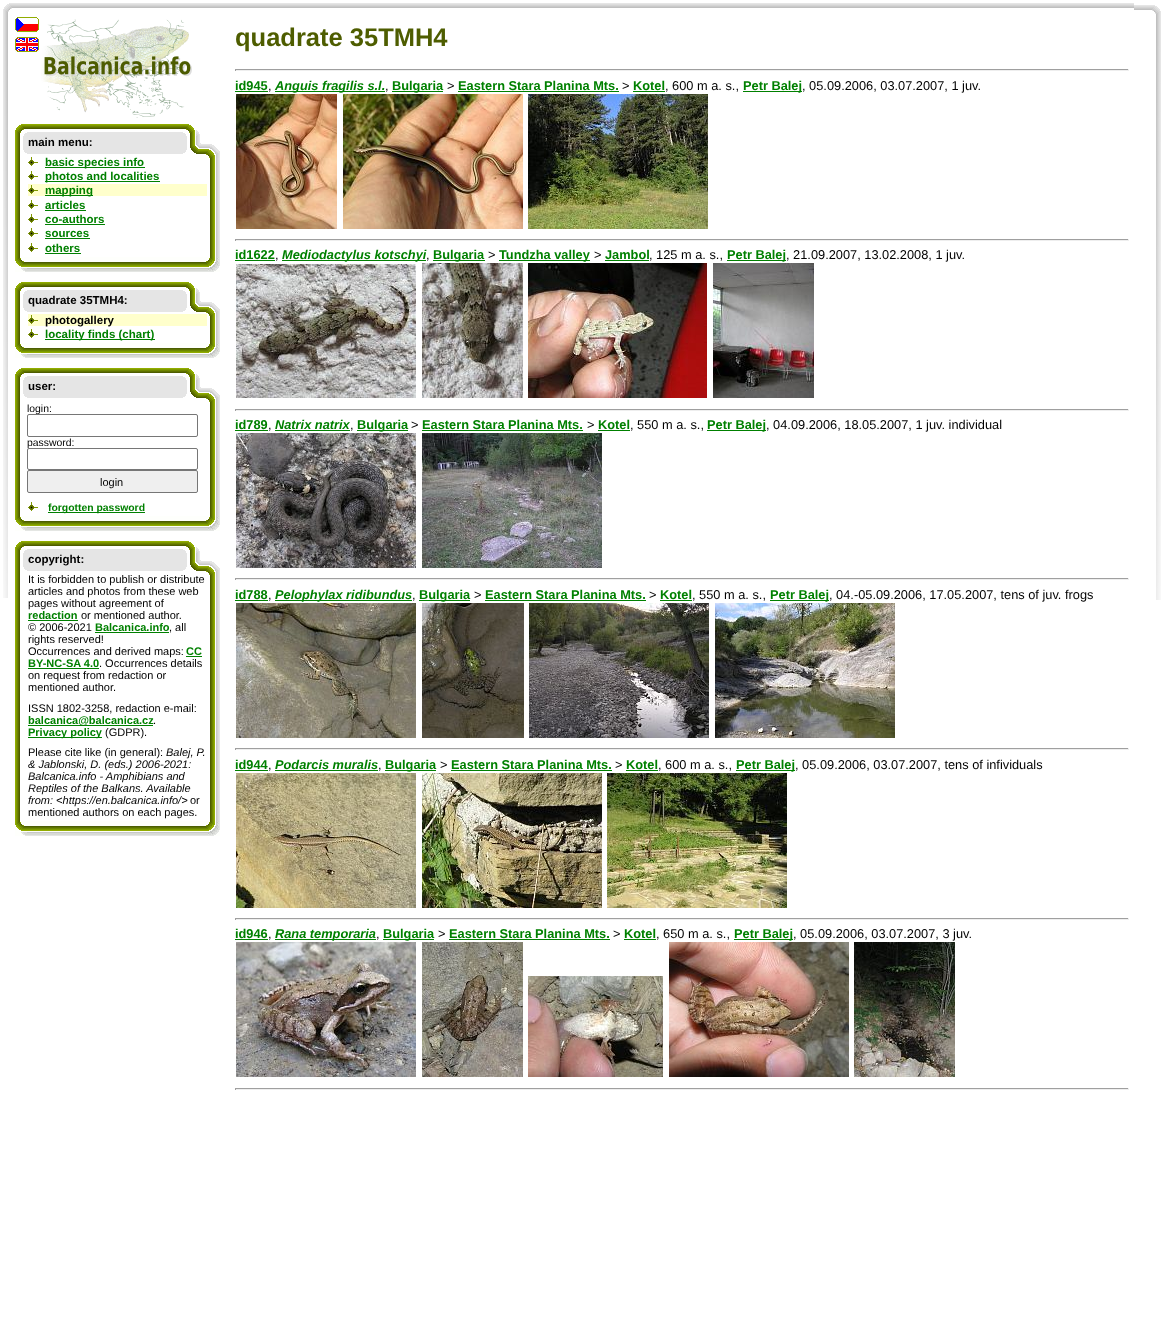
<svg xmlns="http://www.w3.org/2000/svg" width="1164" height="1336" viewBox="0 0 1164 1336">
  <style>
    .t1 { font: bold 11.5px Liberation Sans; fill: #000; }
    .t2 { font: bold 11.5px Liberation Sans; fill: #008000; }
    .t3 { font: 10.4px Liberation Sans; fill: #000; }
    .t4 { font: 11px Liberation Sans; fill: #000; }
    .t5 { font: bold 10.4px Liberation Sans; fill: #008000; }
    .t6 { font: bold 11px Liberation Sans; fill: #008000; }
    .t7 { font: italic 11px Liberation Sans; fill: #000; }
    .t8 { font: bold 25.5px Liberation Sans; fill: #4e5d00; }
    .t9 { font: bold 12.8px Liberation Sans; fill: #008000; }
    .t10 { font: italic bold 12.8px Liberation Sans; fill: #008000; }
    .t11 { font: 12.8px Liberation Sans; fill: #000; }
  </style>
  <rect width="100%" height="100%" fill="#fff"/>
  <image x="1114" y="5" width="47" height="595" href="images/1.png"/>
  <image x="3" y="3" width="1131" height="595" href="images/2.png"/>
  <image x="15" y="17" width="24" height="15" href="images/3.png"/>
  <image x="41" y="19" width="151" height="99" href="images/4.png"/>
  <image x="15" y="37" width="24" height="15" href="images/5.png"/>
  <image x="15" y="159" width="205" height="98" href="images/6.png"/>
  <image x="15" y="124" width="205" height="35" href="images/7.png"/>
  <text x="28" y="146" class="t1">main menu:</text>
  <image x="28" y="157" width="10" height="9" href="images/8.png"/>
  <rect x="45" y="167" width="100" height="1" fill="#008000"/>
  <text x="45" y="166" class="t2">basic species info</text>
  <image x="28" y="171" width="10" height="9" href="images/8.png"/>
  <rect x="45" y="181" width="115" height="1" fill="#008000"/>
  <text x="45" y="180" class="t2">photos and localities</text>
  <rect x="28" y="184" width="179" height="12" fill="#ffc"/>
  <image x="28" y="185" width="10" height="9" href="images/9.png"/>
  <rect x="45" y="195" width="48" height="1" fill="#008000"/>
  <text x="45" y="194" class="t2">mapping</text>
  <image x="28" y="200" width="10" height="9" href="images/8.png"/>
  <text x="45" y="209" class="t2">articles</text>
  <rect x="45" y="210" width="41" height="1" fill="#008000"/>
  <image x="28" y="214" width="10" height="9" href="images/8.png"/>
  <text x="45" y="223" class="t2">co-authors</text>
  <rect x="45" y="224" width="60" height="1" fill="#008000"/>
  <image x="28" y="228" width="10" height="9" href="images/8.png"/>
  <text x="45" y="237" class="t2">sources</text>
  <rect x="45" y="238" width="45" height="1" fill="#008000"/>
  <image x="28" y="243" width="10" height="9" href="images/8.png"/>
  <text x="45" y="252" class="t2">others</text>
  <rect x="45" y="253" width="36" height="1" fill="#008000"/>
  <image x="15" y="257" width="205" height="15" href="images/10.png"/>
  <image x="15" y="317" width="205" height="26" href="images/11.png"/>
  <image x="15" y="282" width="205" height="35" href="images/7.png"/>
  <text x="28" y="304" class="t1">quadrate 35TMH4:</text>
  <rect x="28" y="314" width="179" height="12" fill="#ffc"/>
  <image x="28" y="315" width="10" height="9" href="images/9.png"/>
  <text x="45" y="324" class="t1">photogallery</text>
  <image x="28" y="329" width="10" height="9" href="images/8.png"/>
  <rect x="45" y="339" width="110" height="1" fill="#008000"/>
  <text x="45" y="338" class="t2">locality finds (chart)</text>
  <image x="15" y="343" width="205" height="15" href="images/10.png"/>
  <image x="15" y="403" width="205" height="113" href="images/12.png"/>
  <image x="15" y="368" width="205" height="35" href="images/7.png"/>
  <text x="28" y="390" class="t1">user:</text>
  <text x="27" y="412" class="t3">login:</text>
  <rect x="27.5" y="414.5" width="170" height="22" rx="1.5" fill="#fff" stroke="#767676"/>
  <text x="27" y="446" class="t3">password:</text>
  <rect x="27.5" y="448.5" width="170" height="21" rx="1.5" fill="#fff" stroke="#767676"/>
  <rect x="27.5" y="470.5" width="170" height="22" rx="1.5" fill="#efefef" stroke="#767676"/>
  <text x="100" y="486" class="t4">login</text>
  <image x="28" y="502" width="10" height="9" href="images/8.png"/>
  <rect x="48" y="512" width="97" height="1" fill="#008000"/>
  <text x="48" y="511" class="t5">forgotten password</text>
  <image x="15" y="516" width="205" height="15" href="images/10.png"/>
  <image x="15" y="576" width="205" height="245" href="images/13.png"/>
  <image x="15" y="541" width="205" height="35" href="images/7.png"/>
  <text x="28" y="563" class="t1">copyright:</text>
  <text x="28" y="583" class="t4">It is forbidden to publish or distribute</text>
  <text x="28" y="595" class="t4">articles and photos from these web</text>
  <text x="28" y="607" class="t4">pages without agreement of</text>
  <text x="28" y="619" class="t6">redaction</text>
  <rect x="28" y="620" width="50" height="1" fill="#008000"/>
  <text x="81" y="619" class="t4">or mentioned author.</text>
  <text x="28" y="631" class="t4">© 2006-2021</text>
  <text x="95" y="631" class="t6">Balcanica.info</text>
  <rect x="95" y="632" width="74" height="1" fill="#008000"/>
  <text x="169" y="631" class="t4">, all</text>
  <text x="28" y="643" class="t4">rights reserved!</text>
  <text x="28" y="655" class="t4">Occurrences and derived maps:</text>
  <text x="186" y="655" class="t6">CC</text>
  <rect x="186" y="656" width="16" height="1" fill="#008000"/>
  <text x="28" y="667" class="t6">BY-NC-SA 4.0</text>
  <rect x="28" y="668" width="71" height="1" fill="#008000"/>
  <text x="99" y="667" class="t4">. Occurrences details</text>
  <text x="28" y="679" class="t4">on request from redaction or</text>
  <text x="28" y="691" class="t4">mentioned author.</text>
  <text x="28" y="712" class="t4">ISSN 1802-3258, redaction e-mail:</text>
  <rect x="28" y="725" width="125" height="1" fill="#008000"/>
  <text x="28" y="724" class="t6">balcanica@balcanica.cz</text>
  <text x="153" y="724" class="t4">.</text>
  <rect x="28" y="737" width="74" height="1" fill="#008000"/>
  <text x="28" y="736" class="t6">Privacy policy</text>
  <text x="105" y="736" class="t4">(GDPR).</text>
  <text x="28" y="756" class="t4">Please cite like (in general):</text>
  <text x="166" y="756" class="t7">Balej, P.</text>
  <text x="28" y="768" class="t7">&amp; Jablonski, D. (eds.) 2006-2021:</text>
  <text x="28" y="780" class="t7">Balcanica.info - Amphibians and</text>
  <text x="28" y="792" class="t7">Reptiles of the Balkans. Available</text>
  <text x="28" y="804" class="t7">from: &lt;https://en.balcanica.info/&gt;</text>
  <text x="190" y="804" class="t4">or</text>
  <text x="28" y="816" class="t4">mentioned authors on each pages.</text>
  <image x="15" y="821" width="205" height="15" href="images/10.png"/>
  <text x="235" y="46" class="t8">quadrate 35TMH4</text>
  <rect x="235" y="69" width="894" height="1" fill="#9f9f9f"/>
  <rect x="1128" y="69" width="1" height="2" fill="#eee"/>
  <rect x="235" y="70" width="894" height="1" fill="#eee"/>
  <rect x="235" y="69" width="1" height="2" fill="#9f9f9f"/>
  <text x="235" y="90" class="t9">id945</text>
  <rect x="235" y="91" width="33" height="1" fill="#008000"/>
  <rect x="275" y="91" width="110" height="1" fill="#008000"/>
  <text x="275" y="90" class="t10">Anguis fragilis s.l.</text>
  <rect x="392" y="91" width="51" height="1" fill="#008000"/>
  <text x="392" y="90" class="t9">Bulgaria</text>
  <text x="447" y="90" class="t11">&gt;</text>
  <text x="458" y="90" class="t9">Eastern Stara Planina Mts.</text>
  <rect x="458" y="91" width="161" height="1" fill="#008000"/>
  <text x="622" y="90" class="t11">&gt;</text>
  <text x="633" y="90" class="t9">Kotel</text>
  <rect x="633" y="91" width="32" height="1" fill="#008000"/>
  <text x="665" y="90" class="t11">, 600 m a. s.,</text>
  <rect x="743" y="91" width="59" height="1" fill="#008000"/>
  <text x="743" y="90" class="t9">Petr Balej</text>
  <text x="802" y="90" class="t11">, 05.09.2006, 03.07.2007, 1 juv.</text>
  <text x="268" y="90" class="t11">,</text>
  <text x="385" y="90" class="t11">,</text>
  <image x="236" y="94" width="101" height="135" href="images/14.png"/>
  <image x="343" y="94" width="180" height="135" href="images/15.png"/>
  <image x="528" y="94" width="180" height="135" href="images/16.png"/>
  <rect x="235" y="239" width="894" height="1" fill="#9f9f9f"/>
  <rect x="1128" y="239" width="1" height="2" fill="#eee"/>
  <rect x="235" y="240" width="894" height="1" fill="#eee"/>
  <rect x="235" y="239" width="1" height="2" fill="#9f9f9f"/>
  <text x="235" y="259" class="t9">id1622</text>
  <rect x="235" y="260" width="40" height="1" fill="#008000"/>
  <rect x="282" y="260" width="144" height="1" fill="#008000"/>
  <text x="282" y="259" class="t10">Mediodactylus kotschyi</text>
  <rect x="433" y="260" width="52" height="1" fill="#008000"/>
  <text x="433" y="259" class="t9">Bulgaria</text>
  <text x="488" y="259" class="t11">&gt;</text>
  <rect x="499" y="260" width="91" height="1" fill="#008000"/>
  <text x="499" y="259" class="t9">Tundzha valley</text>
  <text x="594" y="259" class="t11">&gt;</text>
  <text x="605" y="259" class="t9">Jambol</text>
  <rect x="605" y="260" width="44" height="1" fill="#008000"/>
  <text x="649" y="259" class="t11">, 125 m a. s.,</text>
  <rect x="727" y="260" width="59" height="1" fill="#008000"/>
  <text x="727" y="259" class="t9">Petr Balej</text>
  <text x="786" y="259" class="t11">, 21.09.2007, 13.02.2008, 1 juv.</text>
  <text x="275" y="259" class="t11">,</text>
  <text x="426" y="259" class="t11">,</text>
  <image x="236" y="264" width="180" height="134" href="images/17.png"/>
  <image x="422" y="263" width="101" height="135" href="images/18.png"/>
  <image x="528" y="263" width="179" height="135" href="images/19.png"/>
  <image x="713" y="263" width="101" height="135" href="images/20.png"/>
  <rect x="235" y="409" width="894" height="1" fill="#9f9f9f"/>
  <rect x="1128" y="409" width="1" height="2" fill="#eee"/>
  <rect x="235" y="410" width="894" height="1" fill="#eee"/>
  <rect x="235" y="409" width="1" height="2" fill="#9f9f9f"/>
  <text x="235" y="429" class="t9">id789</text>
  <rect x="235" y="430" width="33" height="1" fill="#008000"/>
  <text x="275" y="429" class="t10">Natrix natrix</text>
  <rect x="275" y="430" width="75" height="1" fill="#008000"/>
  <rect x="357" y="430" width="51" height="1" fill="#008000"/>
  <text x="357" y="429" class="t9">Bulgaria</text>
  <text x="411" y="429" class="t11">&gt;</text>
  <text x="422" y="429" class="t9">Eastern Stara Planina Mts.</text>
  <rect x="422" y="430" width="161" height="1" fill="#008000"/>
  <text x="587" y="429" class="t11">&gt;</text>
  <text x="598" y="429" class="t9">Kotel</text>
  <rect x="598" y="430" width="32" height="1" fill="#008000"/>
  <text x="630" y="429" class="t11">, 550 m a. s.,</text>
  <rect x="707" y="430" width="59" height="1" fill="#008000"/>
  <text x="707" y="429" class="t9">Petr Balej</text>
  <text x="766" y="429" class="t11">, 04.09.2006, 18.05.2007, 1 juv. individual</text>
  <text x="268" y="429" class="t11">,</text>
  <text x="350" y="429" class="t11">,</text>
  <image x="236" y="433" width="180" height="135" href="images/21.png"/>
  <image x="422" y="433" width="180" height="135" href="images/22.png"/>
  <rect x="235" y="578" width="894" height="1" fill="#9f9f9f"/>
  <rect x="1128" y="578" width="1" height="2" fill="#eee"/>
  <rect x="235" y="579" width="894" height="1" fill="#eee"/>
  <rect x="235" y="578" width="1" height="2" fill="#9f9f9f"/>
  <text x="235" y="599" class="t9">id788</text>
  <rect x="235" y="600" width="33" height="1" fill="#008000"/>
  <rect x="275" y="600" width="137" height="1" fill="#008000"/>
  <text x="275" y="599" class="t10">Pelophylax ridibundus</text>
  <rect x="419" y="600" width="51" height="1" fill="#008000"/>
  <text x="419" y="599" class="t9">Bulgaria</text>
  <text x="474" y="599" class="t11">&gt;</text>
  <text x="485" y="599" class="t9">Eastern Stara Planina Mts.</text>
  <rect x="485" y="600" width="161" height="1" fill="#008000"/>
  <text x="649" y="599" class="t11">&gt;</text>
  <text x="660" y="599" class="t9">Kotel</text>
  <rect x="660" y="600" width="32" height="1" fill="#008000"/>
  <text x="692" y="599" class="t11">, 550 m a. s.,</text>
  <rect x="770" y="600" width="59" height="1" fill="#008000"/>
  <text x="770" y="599" class="t9">Petr Balej</text>
  <text x="829" y="599" class="t11">, 04.-05.09.2006, 17.05.2007, tens of juv. frogs</text>
  <text x="268" y="599" class="t11">,</text>
  <text x="412" y="599" class="t11">,</text>
  <image x="236" y="603" width="180" height="135" href="images/23.png"/>
  <image x="422" y="603" width="102" height="135" href="images/24.png"/>
  <image x="529" y="603" width="180" height="135" href="images/25.png"/>
  <image x="715" y="603" width="180" height="135" href="images/26.png"/>
  <rect x="235" y="748" width="894" height="1" fill="#9f9f9f"/>
  <rect x="1128" y="748" width="1" height="2" fill="#eee"/>
  <rect x="235" y="749" width="894" height="1" fill="#eee"/>
  <rect x="235" y="748" width="1" height="2" fill="#9f9f9f"/>
  <text x="235" y="769" class="t9">id944</text>
  <rect x="235" y="770" width="33" height="1" fill="#008000"/>
  <text x="275" y="769" class="t10">Podarcis muralis</text>
  <rect x="275" y="770" width="103" height="1" fill="#008000"/>
  <rect x="385" y="770" width="51" height="1" fill="#008000"/>
  <text x="385" y="769" class="t9">Bulgaria</text>
  <text x="440" y="769" class="t11">&gt;</text>
  <text x="451" y="769" class="t9">Eastern Stara Planina Mts.</text>
  <rect x="451" y="770" width="161" height="1" fill="#008000"/>
  <text x="615" y="769" class="t11">&gt;</text>
  <text x="626" y="769" class="t9">Kotel</text>
  <rect x="626" y="770" width="32" height="1" fill="#008000"/>
  <text x="658" y="769" class="t11">, 600 m a. s.,</text>
  <rect x="736" y="770" width="59" height="1" fill="#008000"/>
  <text x="736" y="769" class="t9">Petr Balej</text>
  <text x="795" y="769" class="t11">, 05.09.2006, 03.07.2007, tens of infividuals</text>
  <text x="268" y="769" class="t11">,</text>
  <text x="378" y="769" class="t11">,</text>
  <image x="236" y="773" width="180" height="135" href="images/27.png"/>
  <image x="422" y="773" width="180" height="135" href="images/28.png"/>
  <image x="607" y="773" width="180" height="135" href="images/29.png"/>
  <rect x="235" y="918" width="894" height="1" fill="#9f9f9f"/>
  <rect x="1128" y="918" width="1" height="2" fill="#eee"/>
  <rect x="235" y="919" width="894" height="1" fill="#eee"/>
  <rect x="235" y="918" width="1" height="2" fill="#9f9f9f"/>
  <text x="235" y="938" class="t9">id946</text>
  <rect x="235" y="939" width="33" height="1" fill="#008000"/>
  <rect x="275" y="939" width="101" height="1" fill="#008000"/>
  <text x="275" y="938" class="t10">Rana temporaria</text>
  <rect x="383" y="939" width="51" height="1" fill="#008000"/>
  <text x="383" y="938" class="t9">Bulgaria</text>
  <text x="438" y="938" class="t11">&gt;</text>
  <text x="449" y="938" class="t9">Eastern Stara Planina Mts.</text>
  <rect x="449" y="939" width="161" height="1" fill="#008000"/>
  <text x="613" y="938" class="t11">&gt;</text>
  <text x="624" y="938" class="t9">Kotel</text>
  <rect x="624" y="939" width="32" height="1" fill="#008000"/>
  <text x="656" y="938" class="t11">, 650 m a. s.,</text>
  <rect x="734" y="939" width="59" height="1" fill="#008000"/>
  <text x="734" y="938" class="t9">Petr Balej</text>
  <text x="793" y="938" class="t11">, 05.09.2006, 03.07.2007, 3 juv.</text>
  <text x="268" y="938" class="t11">,</text>
  <text x="376" y="938" class="t11">,</text>
  <image x="236" y="942" width="180" height="135" href="images/30.png"/>
  <image x="422" y="942" width="101" height="135" href="images/31.png"/>
  <image x="528" y="976" width="135" height="101" href="images/32.png"/>
  <image x="669" y="942" width="180" height="135" href="images/33.png"/>
  <image x="854" y="942" width="101" height="135" href="images/34.png"/>
  <rect x="235" y="1088" width="894" height="1" fill="#9f9f9f"/>
  <rect x="1128" y="1088" width="1" height="2" fill="#eee"/>
  <rect x="235" y="1089" width="894" height="1" fill="#eee"/>
  <rect x="235" y="1088" width="1" height="2" fill="#9f9f9f"/>
</svg>
